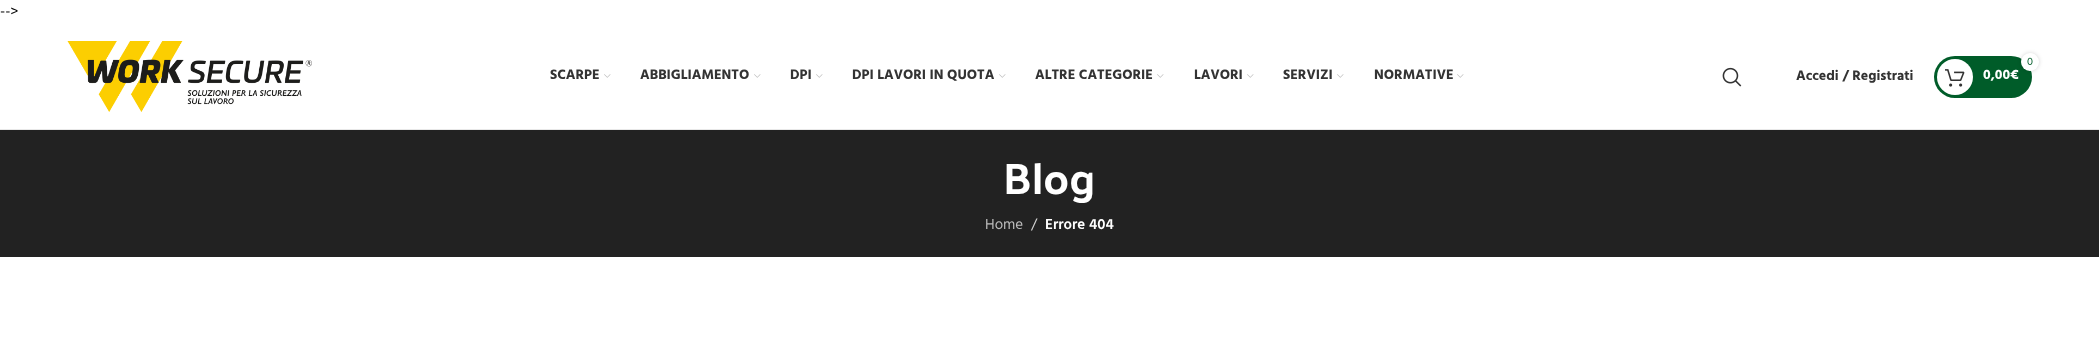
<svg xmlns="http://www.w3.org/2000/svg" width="2099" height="340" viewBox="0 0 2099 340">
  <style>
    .t1 { font: 15px Hind; fill: #000; }
    .t2 { font: bold 14px Hind; fill: #333; }
    .t3 { font: 11px Hind; fill: #005c29; }
    .t4 { font: bold 14px Hind; fill: #fff; }
    .t5 { font: 44px Palanquin Dark; fill: #fff; }
    .t6 { font: 15px Hind; fill: #bdbdbd; }
    .t7 { font: 15px Hind; fill: #d3d3d3; }
    .t8 { font: 600 15px Hind; fill: #fff; }
  </style>
  <rect width="100%" height="100%" fill="#fff"/>
  <text x="0" y="16" class="t1">--&gt;</text>
  <rect x="0" y="129" width="2099" height="1" fill="#e8e8e8"/>
  <image x="67" y="41" width="245" height="71" href="images/1.png"/>
  <text x="550" y="79" class="t2">SCARPE</text>
  <image x="604" y="74" width="7" height="4" href="images/2.png"/>
  <text x="640" y="79" class="t2">ABBIGLIAMENTO</text>
  <image x="754" y="74" width="7" height="4" href="images/2.png"/>
  <text x="790" y="79" class="t2">DPI</text>
  <image x="816" y="74" width="7" height="4" href="images/2.png"/>
  <text x="852" y="79" class="t2">DPI LAVORI IN QUOTA</text>
  <image x="999" y="74" width="7" height="4" href="images/2.png"/>
  <text x="1035" y="79" class="t2">ALTRE CATEGORIE</text>
  <image x="1157" y="74" width="7" height="4" href="images/2.png"/>
  <text x="1194" y="79" class="t2">LAVORI</text>
  <image x="1247" y="74" width="7" height="4" href="images/2.png"/>
  <text x="1283" y="79" class="t2">SERVIZI</text>
  <image x="1337" y="74" width="7" height="4" href="images/2.png"/>
  <text x="1374" y="79" class="t2">NORMATIVE</text>
  <image x="1457" y="74" width="7" height="4" href="images/2.png"/>
  <image x="1722" y="67" width="20" height="20" href="images/3.png"/>
  <text x="1796" y="80" class="t2">Accedi / Registrati</text>
  <rect x="1934" y="56" width="98" height="42" rx="21" fill="#005c29"/>
  <circle cx="1955" cy="77" r="18" fill="#fff"/>
  <rect x="2021" y="53" width="18" height="18" rx="9" fill="#0000002b" filter="blur(2px)"/>
  <circle cx="2030" cy="62" r="9" fill="#fff"/>
  <text x="2027" y="65" class="t3">0</text>
  <image x="1945" y="69" width="20" height="18" href="images/4.png"/>
  <text x="1983" y="79" class="t4">0,00€</text>
  <rect x="0" y="130" width="2099" height="127" fill="#222"/>
  <text x="1003" y="194" class="t5">Blog</text>
  <text x="985" y="229" class="t6">Home</text>
  <text x="1031" y="229" class="t7">/</text>
  <text x="1045" y="229" class="t8">Errore 404</text>
</svg>
